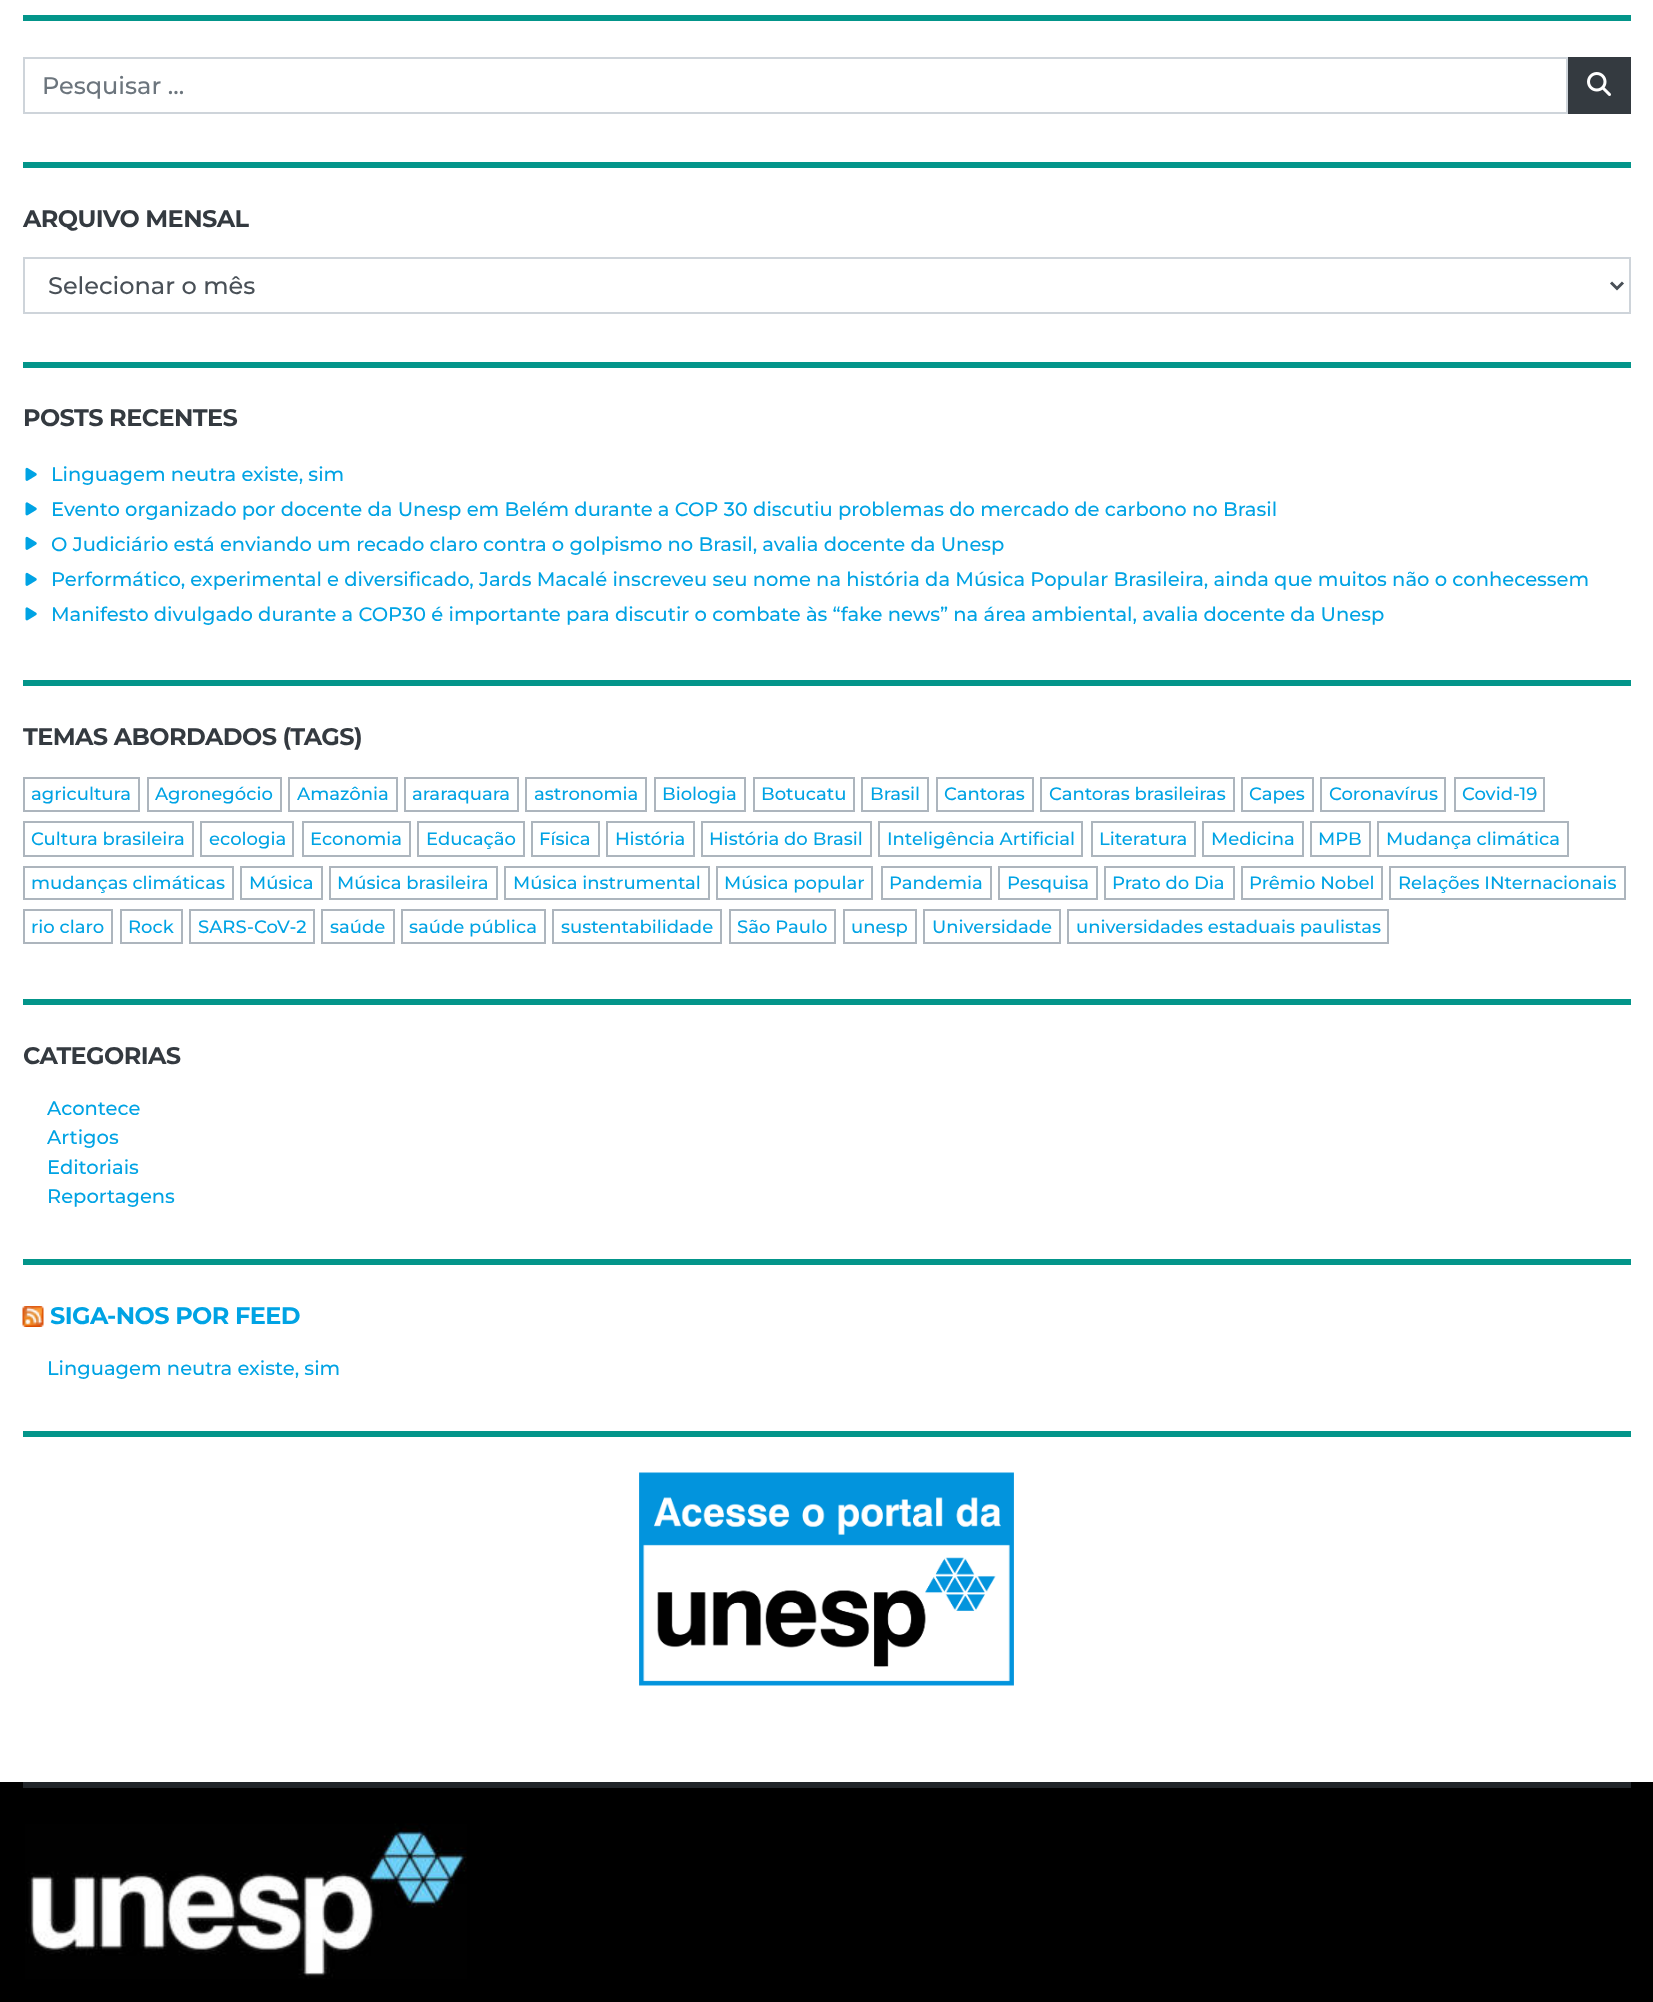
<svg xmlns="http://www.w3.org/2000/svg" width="1653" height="2002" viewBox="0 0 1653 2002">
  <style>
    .t1 { font: 500 24px Montserrat; fill: #6c757d; }
    .t2 { font: bold 24px Montserrat; letter-spacing: -0.6px; fill: #343a40; }
    .t3 { font: 500 24px Montserrat; fill: #495057; }
    .t4 { font: 500 19.5px Montserrat; fill: #00a3e4; }
    .t5 { font: 500 18px Montserrat; fill: #00a3e4; }
    .t6 { font: bold 24px Montserrat; letter-spacing: -0.6px; fill: #00a3e4; }
  </style>
  <rect width="100%" height="100%" fill="#fff"/>
  <rect x="23" y="15" width="1608" height="6" fill="#03958a"/>
  <rect x="24" y="58" width="1543" height="55" fill="none" stroke="#ced4da" stroke-width="2"/>
  <text x="42" y="94" class="t1">Pesquisar ...</text>
  <rect x="1568" y="57" width="63" height="57" fill="#343a40"/>
  <image x="1587" y="72" width="24" height="24" href="images/1.png"/>
  <rect x="23" y="162" width="1608" height="6" fill="#03958a"/>
  <text x="23" y="227" class="t2">ARQUIVO MENSAL</text>
  <rect x="24" y="258" width="1606" height="55" fill="none" stroke="#ced4da" stroke-width="2"/>
  <path d="M1611 282.5L1617 288.5L1623 282.5" fill="none" stroke="#495057" stroke-width="3"/>
  <text x="48" y="294" class="t3">Selecionar o mês</text>
  <rect x="23" y="362" width="1608" height="6" fill="#03958a"/>
  <text x="23" y="426" class="t2">POSTS RECENTES</text>
  <image x="25" y="467" width="12" height="14" href="images/2.png"/>
  <text x="51" y="481" class="t4">Linguagem neutra existe, sim</text>
  <image x="25" y="502" width="12" height="14" href="images/3.png"/>
  <text x="51" y="516" class="t4">Evento organizado por docente da Unesp em Belém durante a COP 30 discutiu problemas do mercado de carbono no Brasil</text>
  <image x="25" y="536" width="12" height="14" href="images/2.png"/>
  <text x="51" y="551" class="t4">O Judiciário está enviando um recado claro contra o golpismo no Brasil, avalia docente da Unesp</text>
  <image x="25" y="572" width="12" height="14" href="images/2.png"/>
  <text x="51" y="586" class="t4">Performático, experimental e diversificado, Jards Macalé inscreveu seu nome na história da Música Popular Brasileira, ainda que muitos não o conhecessem</text>
  <image x="25" y="607" width="12" height="14" href="images/3.png"/>
  <text x="51" y="621" class="t4">Manifesto divulgado durante a COP30 é importante para discutir o combate às “fake news” na área ambiental, avalia docente da Unesp</text>
  <rect x="23" y="680" width="1608" height="6" fill="#03958a"/>
  <text x="23" y="745" class="t2">TEMAS ABORDADOS (TAGS)</text>
  <rect x="24" y="778" width="115" height="33" fill="none" stroke="#adb5bd" stroke-width="2"/>
  <text x="31" y="800" class="t5">agricultura</text>
  <rect x="148" y="778" width="133" height="33" fill="none" stroke="#adb5bd" stroke-width="2"/>
  <text x="155" y="800" class="t5">Agronegócio</text>
  <rect x="289" y="778" width="108" height="33" fill="none" stroke="#adb5bd" stroke-width="2"/>
  <text x="297" y="800" class="t5">Amazônia</text>
  <rect x="405" y="778" width="113" height="33" fill="none" stroke="#adb5bd" stroke-width="2"/>
  <text x="412" y="800" class="t5">araraquara</text>
  <rect x="526" y="778" width="120" height="33" fill="none" stroke="#adb5bd" stroke-width="2"/>
  <text x="534" y="800" class="t5">astronomia</text>
  <rect x="655" y="778" width="90" height="33" fill="none" stroke="#adb5bd" stroke-width="2"/>
  <text x="662" y="800" class="t5">Biologia</text>
  <rect x="754" y="778" width="100" height="33" fill="none" stroke="#adb5bd" stroke-width="2"/>
  <text x="761" y="800" class="t5">Botucatu</text>
  <rect x="862" y="778" width="66" height="33" fill="none" stroke="#adb5bd" stroke-width="2"/>
  <text x="870" y="800" class="t5">Brasil</text>
  <rect x="937" y="778" width="96" height="33" fill="none" stroke="#adb5bd" stroke-width="2"/>
  <text x="944" y="800" class="t5">Cantoras</text>
  <rect x="1041" y="778" width="193" height="33" fill="none" stroke="#adb5bd" stroke-width="2"/>
  <text x="1049" y="800" class="t5">Cantoras brasileiras</text>
  <rect x="1242" y="778" width="71" height="33" fill="none" stroke="#adb5bd" stroke-width="2"/>
  <text x="1249" y="800" class="t5">Capes</text>
  <rect x="1321" y="778" width="124" height="33" fill="none" stroke="#adb5bd" stroke-width="2"/>
  <text x="1329" y="800" class="t5">Coronavírus</text>
  <rect x="1455" y="778" width="89" height="33" fill="none" stroke="#adb5bd" stroke-width="2"/>
  <text x="1462" y="800" class="t5">Covid-19</text>
  <rect x="24" y="822" width="169" height="34" fill="none" stroke="#adb5bd" stroke-width="2"/>
  <text x="31" y="845" class="t5">Cultura brasileira</text>
  <rect x="201" y="822" width="92" height="34" fill="none" stroke="#adb5bd" stroke-width="2"/>
  <text x="209" y="845" class="t5">ecologia</text>
  <rect x="303" y="822" width="107" height="34" fill="none" stroke="#adb5bd" stroke-width="2"/>
  <text x="310" y="845" class="t5">Economia</text>
  <rect x="418" y="822" width="106" height="34" fill="none" stroke="#adb5bd" stroke-width="2"/>
  <text x="426" y="845" class="t5">Educação</text>
  <rect x="532" y="822" width="67" height="34" fill="none" stroke="#adb5bd" stroke-width="2"/>
  <text x="539" y="845" class="t5">Física</text>
  <rect x="607" y="822" width="87" height="34" fill="none" stroke="#adb5bd" stroke-width="2"/>
  <text x="615" y="845" class="t5">História</text>
  <rect x="702" y="822" width="169" height="34" fill="none" stroke="#adb5bd" stroke-width="2"/>
  <text x="709" y="845" class="t5">História do Brasil</text>
  <rect x="879" y="822" width="203" height="34" fill="none" stroke="#adb5bd" stroke-width="2"/>
  <text x="887" y="845" class="t5">Inteligência Artificial</text>
  <rect x="1092" y="822" width="103" height="34" fill="none" stroke="#adb5bd" stroke-width="2"/>
  <text x="1099" y="845" class="t5">Literatura</text>
  <rect x="1203" y="822" width="100" height="34" fill="none" stroke="#adb5bd" stroke-width="2"/>
  <text x="1211" y="845" class="t5">Medicina</text>
  <rect x="1311" y="822" width="59" height="34" fill="none" stroke="#adb5bd" stroke-width="2"/>
  <text x="1318" y="845" class="t5">MPB</text>
  <rect x="1378" y="822" width="190" height="34" fill="none" stroke="#adb5bd" stroke-width="2"/>
  <text x="1386" y="845" class="t5">Mudança climática</text>
  <rect x="24" y="867" width="209" height="32" fill="none" stroke="#adb5bd" stroke-width="2"/>
  <text x="31" y="889" class="t5">mudanças climáticas</text>
  <rect x="241" y="867" width="81" height="32" fill="none" stroke="#adb5bd" stroke-width="2"/>
  <text x="249" y="889" class="t5">Música</text>
  <rect x="330" y="867" width="167" height="32" fill="none" stroke="#adb5bd" stroke-width="2"/>
  <text x="337" y="889" class="t5">Música brasileira</text>
  <rect x="505" y="867" width="204" height="32" fill="none" stroke="#adb5bd" stroke-width="2"/>
  <text x="513" y="889" class="t5">Música instrumental</text>
  <rect x="717" y="867" width="155" height="32" fill="none" stroke="#adb5bd" stroke-width="2"/>
  <text x="724" y="889" class="t5">Música popular</text>
  <rect x="882" y="867" width="109" height="32" fill="none" stroke="#adb5bd" stroke-width="2"/>
  <text x="889" y="889" class="t5">Pandemia</text>
  <rect x="999" y="867" width="98" height="32" fill="none" stroke="#adb5bd" stroke-width="2"/>
  <text x="1007" y="889" class="t5">Pesquisa</text>
  <rect x="1105" y="867" width="129" height="32" fill="none" stroke="#adb5bd" stroke-width="2"/>
  <text x="1112" y="889" class="t5">Prato do Dia</text>
  <rect x="1242" y="867" width="140" height="32" fill="none" stroke="#adb5bd" stroke-width="2"/>
  <text x="1249" y="889" class="t5">Prêmio Nobel</text>
  <rect x="1390" y="867" width="235" height="32" fill="none" stroke="#adb5bd" stroke-width="2"/>
  <text x="1398" y="889" class="t5">Relações INternacionais</text>
  <rect x="24" y="910" width="88" height="33" fill="none" stroke="#adb5bd" stroke-width="2"/>
  <text x="31" y="933" class="t5">rio claro</text>
  <rect x="121" y="910" width="61" height="33" fill="none" stroke="#adb5bd" stroke-width="2"/>
  <text x="128" y="933" class="t5">Rock</text>
  <rect x="190" y="910" width="124" height="33" fill="none" stroke="#adb5bd" stroke-width="2"/>
  <text x="198" y="933" class="t5">SARS-CoV-2</text>
  <rect x="322" y="910" width="72" height="33" fill="none" stroke="#adb5bd" stroke-width="2"/>
  <text x="330" y="933" class="t5">saúde</text>
  <rect x="402" y="910" width="143" height="33" fill="none" stroke="#adb5bd" stroke-width="2"/>
  <text x="409" y="933" class="t5">saúde pública</text>
  <rect x="553" y="910" width="168" height="33" fill="none" stroke="#adb5bd" stroke-width="2"/>
  <text x="561" y="933" class="t5">sustentabilidade</text>
  <rect x="730" y="910" width="105" height="33" fill="none" stroke="#adb5bd" stroke-width="2"/>
  <text x="737" y="933" class="t5">São Paulo</text>
  <rect x="844" y="910" width="72" height="33" fill="none" stroke="#adb5bd" stroke-width="2"/>
  <text x="851" y="933" class="t5">unesp</text>
  <rect x="924" y="910" width="136" height="33" fill="none" stroke="#adb5bd" stroke-width="2"/>
  <text x="932" y="933" class="t5">Universidade</text>
  <rect x="1068" y="910" width="320" height="33" fill="none" stroke="#adb5bd" stroke-width="2"/>
  <text x="1076" y="933" class="t5">universidades estaduais paulistas</text>
  <rect x="23" y="999" width="1608" height="6" fill="#03958a"/>
  <text x="23" y="1064" class="t2">CATEGORIAS</text>
  <text x="47" y="1115" class="t4">Acontece</text>
  <text x="47" y="1144" class="t4">Artigos</text>
  <text x="47" y="1174" class="t4">Editoriais</text>
  <text x="47" y="1203" class="t4">Reportagens</text>
  <rect x="23" y="1259" width="1608" height="6" fill="#03958a"/>
  <image x="22" y="1306" width="22" height="21" href="images/4.png"/>
  <text x="50" y="1324" class="t6">SIGA-NOS POR FEED</text>
  <text x="47" y="1375" class="t4">Linguagem neutra existe, sim</text>
  <rect x="23" y="1431" width="1608" height="6" fill="#03958a"/>
  <image x="639" y="1472" width="375" height="214" href="images/5.png"/>
  <rect x="0" y="1782" width="1653" height="220" fill="#000"/>
  <rect x="23" y="1782" width="1608" height="6" fill="#212529"/>
  <image x="25" y="1823" width="442" height="156" href="images/6.png"/>
</svg>
